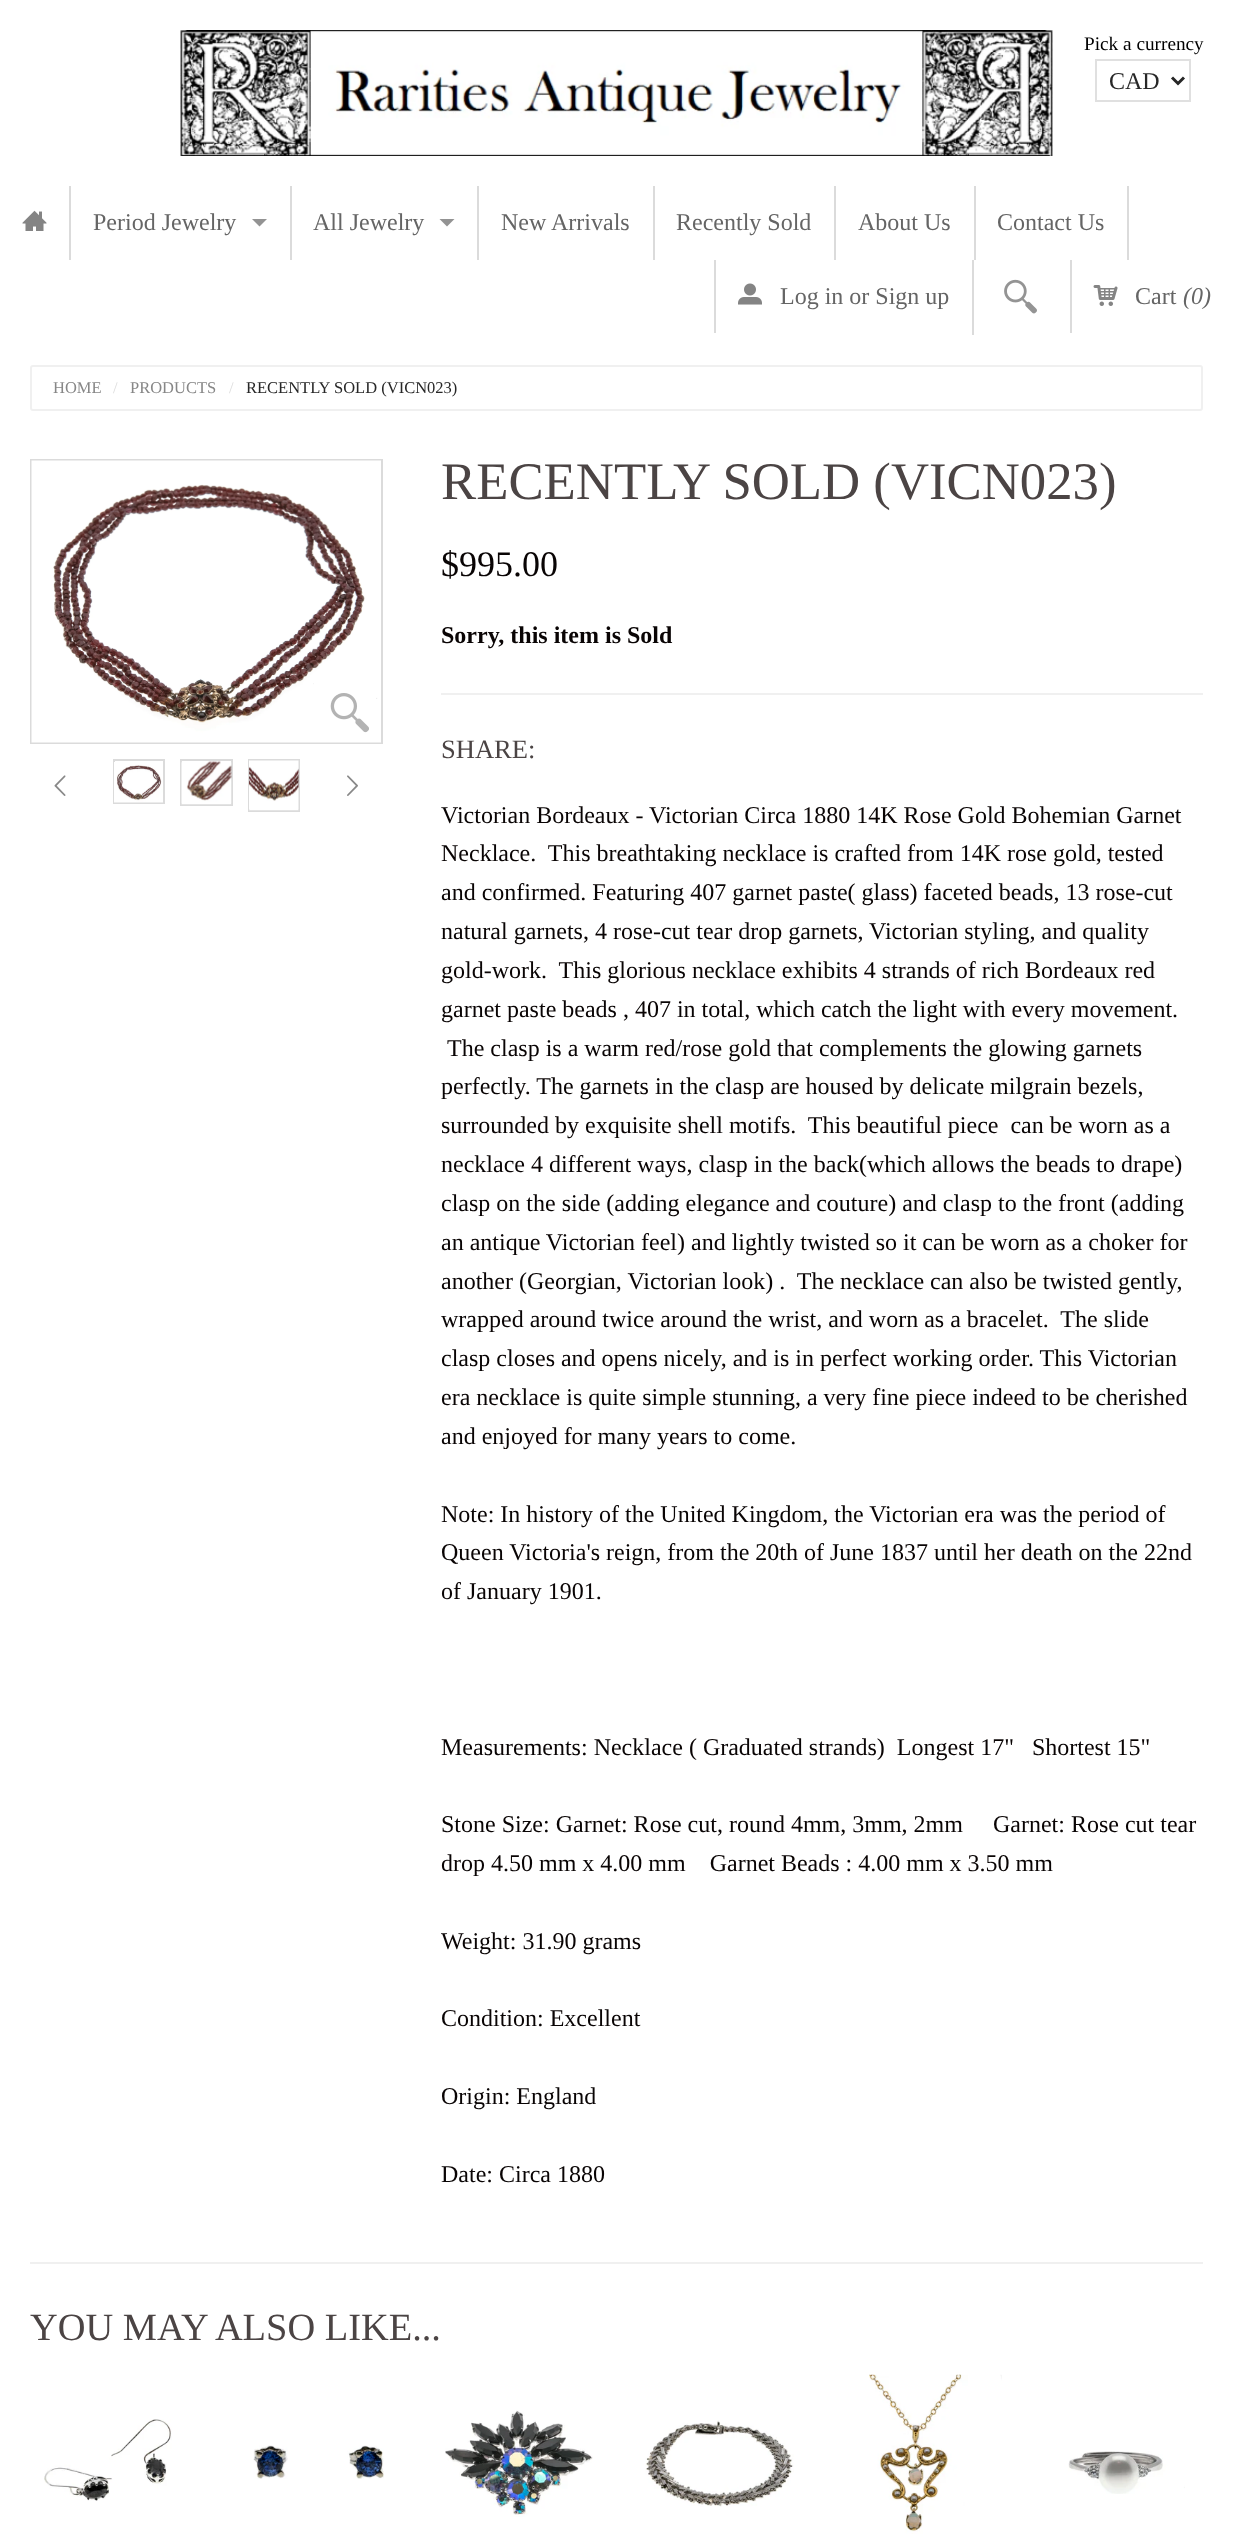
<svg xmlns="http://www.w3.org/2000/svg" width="1233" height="2543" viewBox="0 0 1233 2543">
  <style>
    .t1 { font: 19.25px Liberation Serif; fill: #000; }
    .t2 { font: 24px Liberation Serif; fill: #272727; }
    .t3 { font: 24px Liberation Serif; fill: #656565; }
    .t4 { font: italic 24px Liberation Serif; fill: #656565; }
    .t5 { font: 16.5px Liberation Serif; fill: #878787; }
    .t6 { font: 16.5px Liberation Serif; fill: #ddd; }
    .t7 { font: 16.5px Liberation Serif; fill: #272727; }
    .t8 { font: 52.75px Liberation Serif; fill: #4b4444; }
    .t9 { font: 36px Liberation Serif; fill: #090404; }
    .t10 { font: bold 24px Liberation Serif; fill: #090404; }
    .t11 { font: 26.5px Liberation Serif; fill: #4b4444; }
    .t12 { font: 24px Liberation Serif; fill: #090404; }
    .t13 { font: 38.4px Liberation Serif; fill: #4b4444; }
  </style>
  <rect width="100%" height="100%" fill="#fff"/>
  <image x="180" y="30" width="873" height="126" href="images/1.png"/>
  <text x="1084" y="50" class="t1">Pick a currency</text>
  <rect x="1096" y="60" width="94" height="41" fill="none" stroke="#e0e0e0" stroke-width="2"/>
  <path d="M1172 77.5L1178 83.5L1184 77.5" fill="none" stroke="#272727" stroke-width="3"/>
  <text x="1109" y="89" class="t2">CAD</text>
  <rect x="69" y="186" width="2" height="74" fill="#dbdbdb"/>
  <image x="22" y="210" width="25" height="21" href="images/2.png"/>
  <rect x="290" y="186" width="2" height="74" fill="#dbdbdb"/>
  <text x="93" y="230" class="t3">Period Jewelry</text>
  <path d="M252 219H267L259.5 226.5Z" fill="#939393"/>
  <rect x="477" y="186" width="2" height="74" fill="#dbdbdb"/>
  <text x="313" y="230" class="t3">All Jewelry</text>
  <path d="M439.5 219H454.5L447 226.5Z" fill="#939393"/>
  <rect x="653" y="186" width="2" height="74" fill="#dbdbdb"/>
  <text x="501" y="230" class="t3">New Arrivals</text>
  <rect x="834" y="186" width="2" height="74" fill="#dbdbdb"/>
  <text x="676" y="230" class="t3">Recently Sold</text>
  <rect x="974" y="186" width="2" height="74" fill="#dbdbdb"/>
  <text x="858" y="230" class="t3">About Us</text>
  <rect x="1127" y="186" width="2" height="74" fill="#dbdbdb"/>
  <text x="997" y="230" class="t3">Contact Us</text>
  <rect x="714" y="260" width="2" height="73" fill="#dbdbdb"/>
  <image x="738" y="283" width="24" height="22" href="images/3.png"/>
  <text x="780" y="304" class="t3">Log in or Sign up</text>
  <rect x="972" y="260" width="2" height="75" fill="#dbdbdb"/>
  <image x="1004" y="279" width="33" height="35" href="images/4.png"/>
  <rect x="1070" y="260" width="2" height="73" fill="#dbdbdb"/>
  <image x="1093" y="285" width="25" height="21" href="images/5.png"/>
  <text x="1135" y="304" class="t3">Cart</text>
  <text x="1183" y="304" class="t4">(0)</text>
  <rect x="31" y="366" width="1171" height="44" rx="2" fill="none" stroke="#f0f0f0" stroke-width="2"/>
  <text x="53" y="393" class="t5">HOME</text>
  <text x="113" y="393" class="t6">/</text>
  <text x="130" y="393" class="t5">PRODUCTS</text>
  <text x="229" y="393" class="t6">/</text>
  <text x="246" y="393" class="t7">RECENTLY SOLD (VICN023)</text>
  <rect x="31" y="460" width="351" height="283" fill="none" stroke="#dbdbdb" stroke-width="2"/>
  <image x="31" y="460" width="350" height="283" href="images/6.png"/>
  <image x="330" y="693" width="39" height="40" href="images/7.png"/>
  <rect x="114" y="760" width="50" height="43" fill="none" stroke="#dbdbdb" stroke-width="2"/>
  <image x="114" y="762" width="49" height="41" href="images/8.png"/>
  <rect x="181" y="760" width="51" height="45" fill="none" stroke="#dbdbdb" stroke-width="2"/>
  <image x="181" y="761" width="51" height="44" href="images/9.png"/>
  <rect x="249" y="760" width="50" height="51" fill="none" stroke="#dbdbdb" stroke-width="2"/>
  <image x="249" y="760" width="50" height="51" href="images/10.png"/>
  <image x="54" y="775" width="12" height="21" href="images/11.png"/>
  <image x="347" y="775" width="11" height="21" href="images/12.png"/>
  <text x="441" y="499" class="t8">RECENTLY SOLD (VICN023)</text>
  <text x="441" y="576" class="t9">$995.00</text>
  <text x="441" y="643" class="t10">Sorry, this item is Sold</text>
  <rect x="441" y="693" width="762" height="2" fill="#f0f0f0"/>
  <text x="441" y="758" class="t11">SHARE:</text>
  <text x="441" y="823" class="t12">Victorian Bordeaux - Victorian Circa 1880 14K Rose Gold Bohemian Garnet</text>
  <text x="441" y="861" class="t12" xml:space="preserve">Necklace.  This breathtaking necklace is crafted from 14K rose gold, tested</text>
  <text x="441" y="900" class="t12">and confirmed. Featuring 407 garnet paste( glass) faceted beads, 13 rose-cut</text>
  <text x="441" y="939" class="t12">natural garnets, 4 rose-cut tear drop garnets, Victorian styling, and quality</text>
  <text x="441" y="978" class="t12" xml:space="preserve">gold-work.  This glorious necklace exhibits 4 strands of rich Bordeaux red</text>
  <text x="441" y="1017" class="t12">garnet paste beads , 407 in total, which catch the light with every movement.</text>
  <text x="447" y="1056" class="t12">The clasp is a warm red/rose gold that complements the glowing garnets</text>
  <text x="441" y="1094" class="t12">perfectly. The garnets in the clasp are housed by delicate milgrain bezels,</text>
  <text x="441" y="1133" class="t12" xml:space="preserve">surrounded by exquisite shell motifs.  This beautiful piece  can be worn as a</text>
  <text x="441" y="1172" class="t12">necklace 4 different ways, clasp in the back(which allows the beads to drape)</text>
  <text x="441" y="1211" class="t12">clasp on the side (adding elegance and couture) and clasp to the front (adding</text>
  <text x="441" y="1250" class="t12">an antique Victorian feel) and lightly twisted so it can be worn as a choker for</text>
  <text x="441" y="1289" class="t12" xml:space="preserve">another (Georgian, Victorian look) .  The necklace can also be twisted gently,</text>
  <text x="441" y="1327" class="t12" xml:space="preserve">wrapped around twice around the wrist, and worn as a bracelet.  The slide</text>
  <text x="441" y="1366" class="t12">clasp closes and opens nicely, and is in perfect working order. This Victorian</text>
  <text x="441" y="1405" class="t12">era necklace is quite simple stunning, a very fine piece indeed to be cherished</text>
  <text x="441" y="1444" class="t12">and enjoyed for many years to come.</text>
  <text x="441" y="1522" class="t12">Note: In history of the United Kingdom, the Victorian era was the period of</text>
  <text x="441" y="1560" class="t12">Queen Victoria's reign, from the 20th of June 1837 until her death on the 22nd</text>
  <text x="441" y="1599" class="t12">of January 1901.</text>
  <text x="441" y="1755" class="t12" xml:space="preserve">Measurements: Necklace ( Graduated strands)  Longest 17"   Shortest 15"</text>
  <text x="441" y="1832" class="t12" xml:space="preserve">Stone Size: Garnet: Rose cut, round 4mm, 3mm, 2mm     Garnet: Rose cut tear</text>
  <text x="441" y="1871" class="t12" xml:space="preserve">drop 4.50 mm x 4.00 mm    Garnet Beads : 4.00 mm x 3.50 mm</text>
  <text x="441" y="1949" class="t12">Weight: 31.90 grams</text>
  <text x="441" y="2026" class="t12">Condition: Excellent</text>
  <text x="441" y="2104" class="t12">Origin: England</text>
  <text x="441" y="2182" class="t12">Date: Circa 1880</text>
  <rect x="30" y="2262" width="1173" height="2" fill="#f0f0f0"/>
  <text x="30" y="2340" class="t13">YOU MAY ALSO LIKE...</text>
  <image x="44" y="2419" width="128" height="82" href="images/13.png"/>
  <image x="253" y="2445" width="131" height="34" href="images/14.png"/>
  <image x="445" y="2410" width="148" height="107" href="images/15.png"/>
  <image x="645" y="2420" width="149" height="87" href="images/16.png"/>
  <image x="869" y="2374" width="133" height="160" href="images/17.png"/>
  <image x="1068" y="2451" width="117" height="43" href="images/18.png"/>
</svg>
